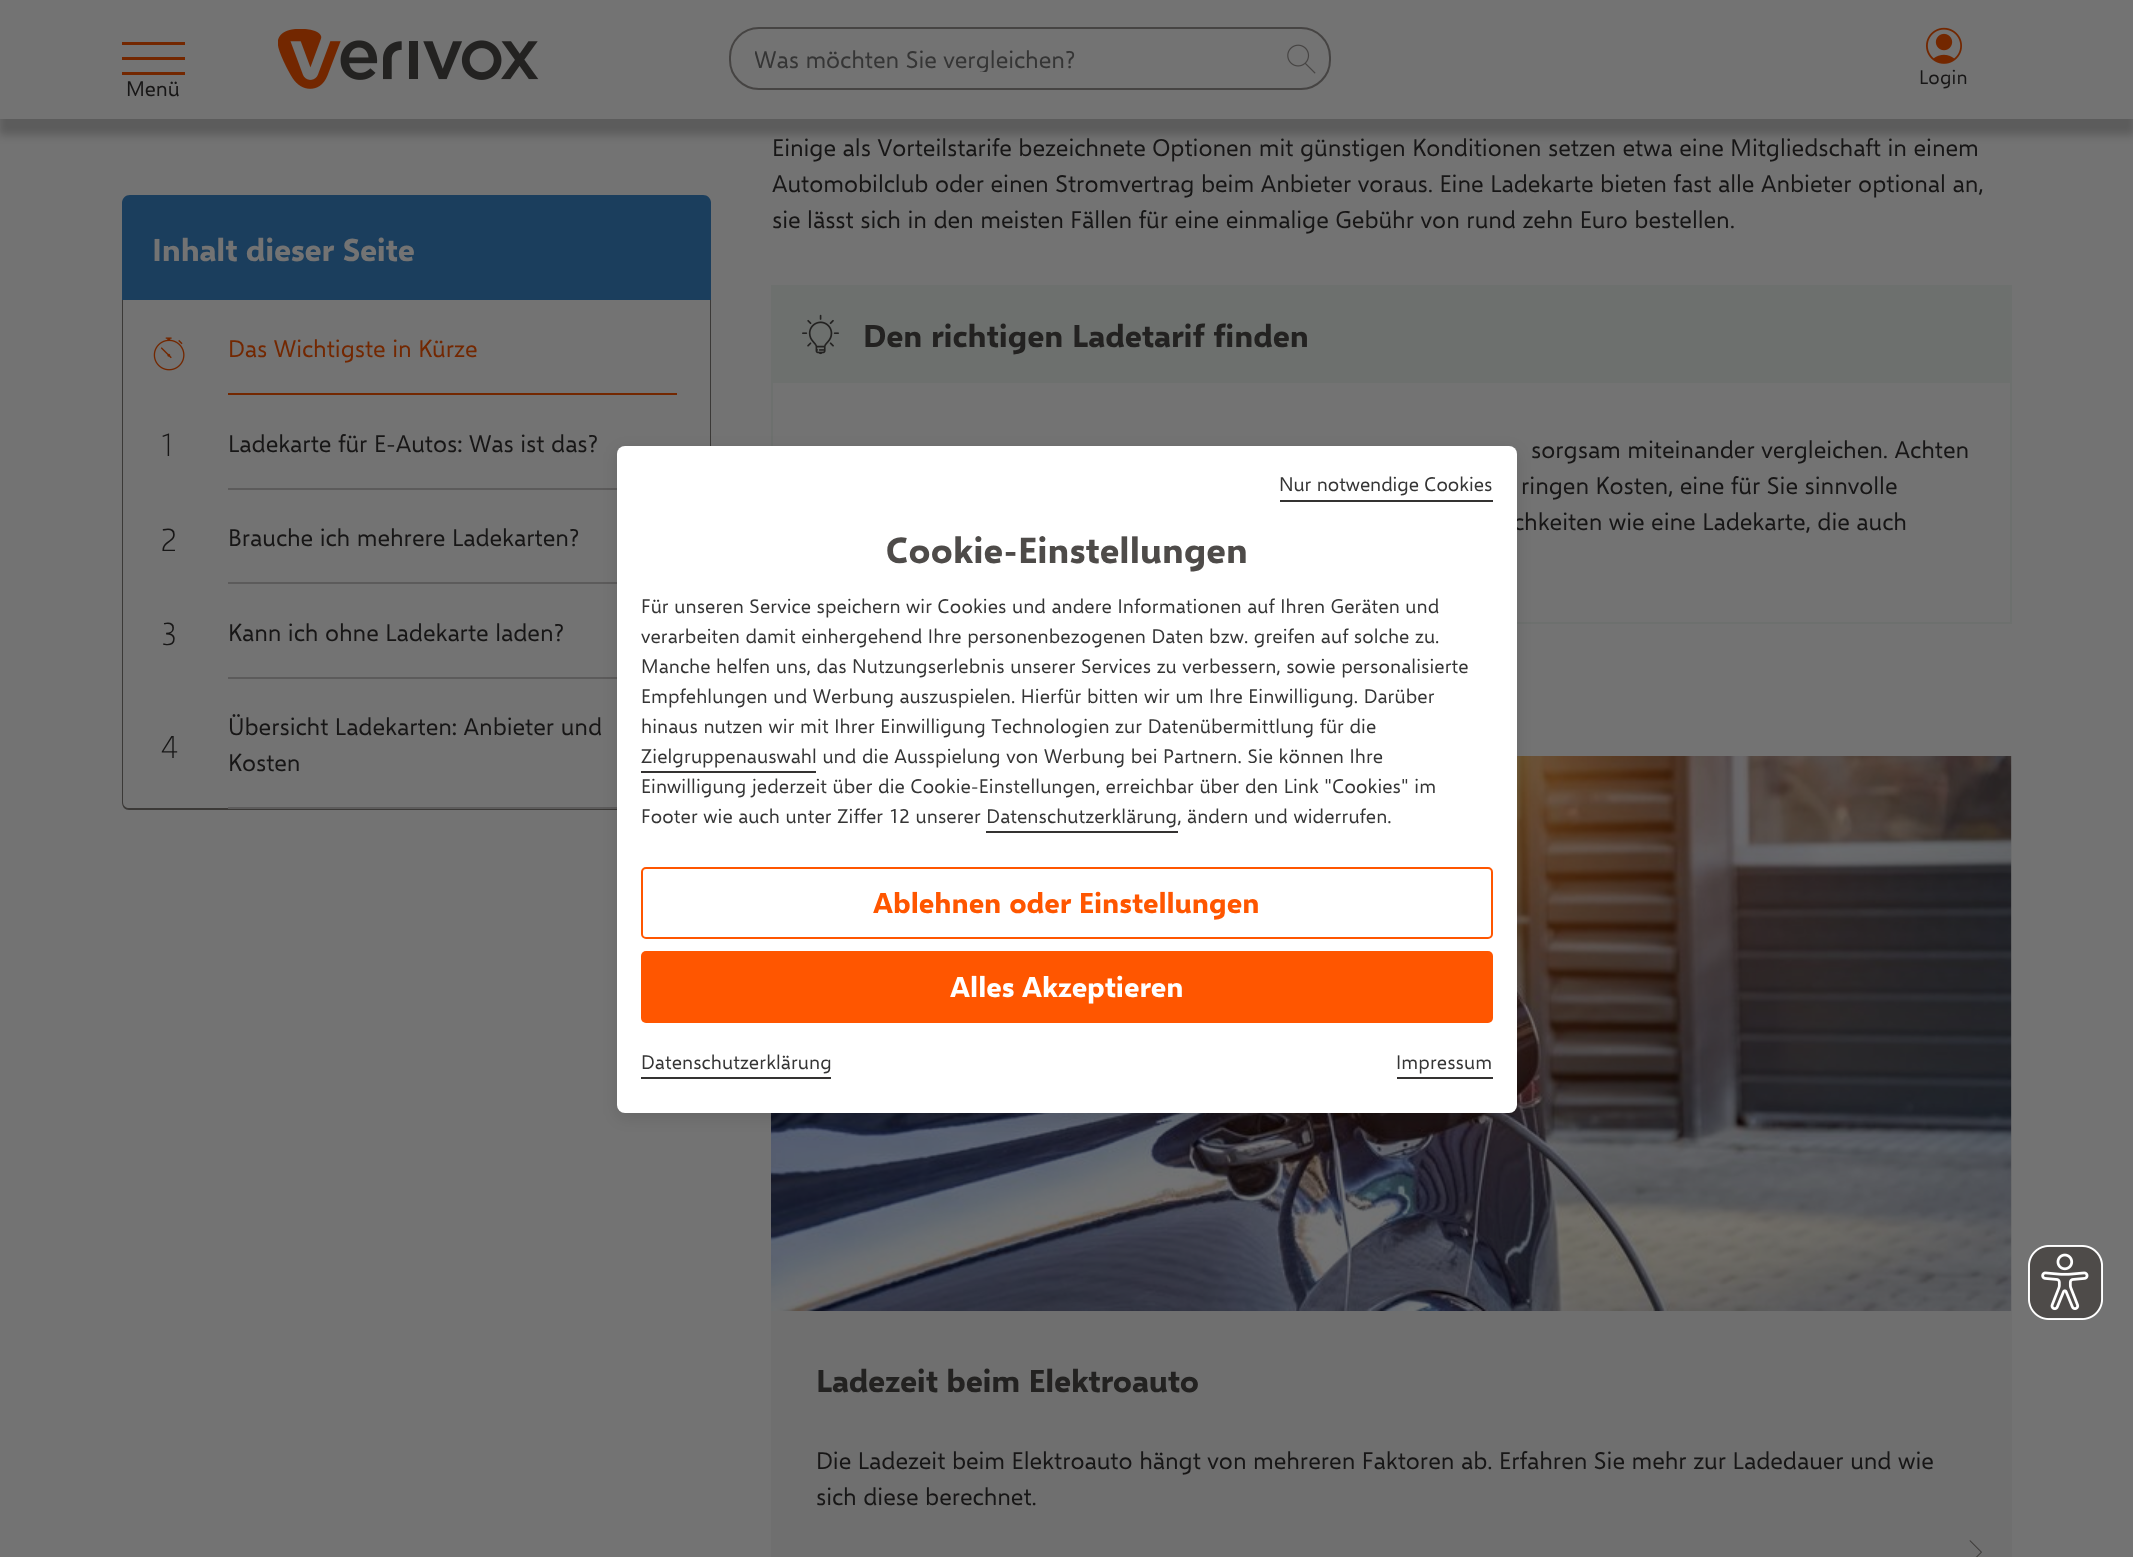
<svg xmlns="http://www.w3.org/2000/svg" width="2133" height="1557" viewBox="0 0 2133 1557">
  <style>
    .t1 { font: 21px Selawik; fill: #171616; }
    .t2 { font: 24px Selawik; fill: #353535; }
    .t3 { font: 19.5px Selawik; letter-spacing: 0.15px; fill: #171616; }
    .t4 { font: 24px Selawik; fill: #171616; }
    .t5 { font: bold 31.5px Selawik; letter-spacing: -0.15px; fill: #737373; }
    .t6 { font: 24px Selawik; fill: #732700; }
    .t7 { font: 300 31.5px Selawik; fill: #171616; }
    .t8 { font: bold 31.5px Selawik; fill: #232221; }
    .t9 { font: bold 31.5px Selawik; letter-spacing: -0.15px; fill: #232221; }
    .t10 { font: 19.5px Selawik; fill: #353535; }
    .t11 { font: bold 36px Selawik; letter-spacing: 0.15px; fill: #4e4b49; }
    .t12 { font: 19.5px Selawik; letter-spacing: 0.15px; fill: #353535; }
    .t13 { font: bold 28.5px Selawik; fill: #ff5600; }
    .t14 { font: bold 28.5px Selawik; fill: #fff; }
  </style>
  <defs>
    <clipPath id="clip1"><rect x="755" y="44" width="502" height="28"/></clipPath>
  </defs>
  <rect width="100%" height="100%" fill="#737373"/>
  <rect x="-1" y="-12" width="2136" height="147" fill="#00000033" filter="blur(4px)"/>
  <rect x="0" y="0" width="2133" height="119" fill="#737373"/>
  <rect x="122" y="42" width="63" height="3" fill="#732700"/>
  <rect x="122" y="57" width="63" height="3" fill="#732700"/>
  <rect x="122" y="72" width="63" height="3" fill="#732700"/>
  <text x="126" y="96" class="t1">Menü</text>
  <image x="278" y="29" width="261" height="60" href="images/1.png"/>
  <rect x="730" y="28" width="600" height="61" rx="29" fill="none" stroke="#464443" stroke-width="2"/>
  <g clip-path="url(#clip1)">
    <text x="754" y="68" class="t2">Was möchten Sie vergleichen?</text>
  </g>
  <image x="1287" y="44" width="29" height="30" href="images/2.png"/>
  <image x="1926" y="27" width="36" height="37" href="images/3.png"/>
  <text x="1919" y="84" class="t3">Login</text>
  <text x="772" y="156" class="t4">Einige als Vorteilstarife bezeichnete Optionen mit günstigen Konditionen setzen etwa eine Mitgliedschaft in einem</text>
  <text x="772" y="192" class="t4">Automobilclub oder einen Stromvertrag beim Anbieter voraus. Eine Ladekarte bieten fast alle Anbieter optional an,</text>
  <text x="772" y="228" class="t4">sie lässt sich in den meisten Fällen für eine einmalige Gebühr von rund zehn Euro bestellen.</text>
  <path d="M130 195H703C707.5 195 711 198.5 711 203V300H122V203C122 198.5 125.5 195 130 195Z" fill="#1b3e5d"/>
  <text x="152" y="261" class="t5">Inhalt dieser Seite</text>
  <path d="M123 300H122V802C122 807 125 810 129 810H703C707 810 711 806 711 802V300H710V802C710 806 707 808 704 808H129C126 808 123 806 123 802Z" fill="#3b3937"/>
  <rect x="228" y="393" width="449" height="2" fill="#732700"/>
  <image x="153" y="337" width="32" height="34" href="images/4.png"/>
  <text x="228" y="357" class="t6">Das Wichtigste in Kürze</text>
  <rect x="228" y="488" width="389" height="2" fill="#5c5b5b"/>
  <text x="161" y="456" class="t7">1</text>
  <text x="228" y="452" class="t4">Ladekarte für E-Autos: Was ist das?</text>
  <rect x="228" y="582" width="389" height="2" fill="#5c5b5b"/>
  <text x="161" y="551" class="t7">2</text>
  <text x="228" y="546" class="t4">Brauche ich mehrere Ladekarten?</text>
  <rect x="228" y="677" width="389" height="2" fill="#5c5b5b"/>
  <text x="161" y="645" class="t7">3</text>
  <text x="228" y="641" class="t4">Kann ich ohne Ladekarte laden?</text>
  <rect x="228" y="807" width="389" height="2" fill="#5c5b5b"/>
  <text x="228" y="735" class="t4">Übersicht Ladekarten: Anbieter und</text>
  <text x="161" y="758" class="t7">4</text>
  <text x="228" y="771" class="t4">Kosten</text>
  <rect x="772" y="286" width="1239" height="337" fill="none" stroke="#6d706e" stroke-width="2"/>
  <rect x="773" y="287" width="1237" height="96" fill="#6d706e"/>
  <image x="802" y="314" width="37" height="41" href="images/5.png"/>
  <text x="863" y="347" class="t8">Den richtigen Ladetarif finden</text>
  <text x="1531" y="458" class="t4">sorgsam miteinander vergleichen. Achten</text>
  <text x="1521" y="494" class="t4">ringen Kosten, eine für Sie sinnvolle</text>
  <text x="1513" y="530" class="t4">chkeiten wie eine Ladekarte, die auch</text>
  <rect x="771" y="756" width="1241" height="801" fill="#6f6f6f"/>
  <image x="771" y="756" width="1241" height="555" href="images/6.png"/>
  <text x="816" y="1392" class="t9">Ladezeit beim Elektroauto</text>
  <text x="816" y="1469" class="t4">Die Ladezeit beim Elektroauto hängt von mehreren Faktoren ab. Erfahren Sie mehr zur Ladedauer und wie</text>
  <text x="816" y="1505" class="t4">sich diese berechnet.</text>
  <image x="1969" y="1540" width="13" height="17" href="images/7.png"/>
  <rect x="617" y="450" width="900" height="668" rx="8" fill="#0000001a" filter="blur(7.5px)"/>
  <rect x="617" y="446" width="900" height="667" rx="8" fill="#fff"/>
  <text x="1279" y="491" class="t10">Nur notwendige Cookies</text>
  <rect x="1280" y="500" width="213" height="2" fill="#343231"/>
  <text x="886" y="563" class="t11">Cookie-Einstellungen</text>
  <text x="641" y="613" class="t12">Für unseren Service speichern wir Cookies und andere Informationen auf Ihren Geräten und</text>
  <text x="641" y="643" class="t12">verarbeiten damit einhergehend Ihre personenbezogenen Daten bzw. greifen auf solche zu.</text>
  <text x="641" y="673" class="t12">Manche helfen uns, das Nutzungserlebnis unserer Services zu verbessern, sowie personalisierte</text>
  <text x="641" y="703" class="t12">Empfehlungen und Werbung auszuspielen. Hierfür bitten wir um Ihre Einwilligung. Darüber</text>
  <text x="641" y="733" class="t12">hinaus nutzen wir mit Ihrer Einwilligung Technologien zur Datenübermittlung für die</text>
  <text x="641" y="763" class="t12">Zielgruppenauswahl und die Ausspielung von Werbung bei Partnern. Sie können Ihre</text>
  <rect x="641" y="771" width="175" height="2" fill="#343231"/>
  <text x="641" y="793" class="t12">Einwilligung jederzeit über die Cookie-Einstellungen, erreichbar über den Link "Cookies" im</text>
  <text x="641" y="823" class="t12">Footer wie auch unter Ziffer 12 unserer Datenschutzerklärung, ändern und widerrufen.</text>
  <rect x="986" y="831" width="192" height="2" fill="#343231"/>
  <rect x="642" y="868" width="850" height="70" rx="4" fill="none" stroke="#ff5600" stroke-width="2"/>
  <text x="873" y="913" class="t13">Ablehnen oder Einstellungen</text>
  <rect x="641" y="951" width="852" height="72" rx="5" fill="#ff5600"/>
  <text x="950" y="997" class="t14">Alles Akzeptieren</text>
  <text x="641" y="1069" class="t12">Datenschutzerklärung</text>
  <rect x="641" y="1077" width="190" height="2" fill="#343231"/>
  <text x="1396" y="1069" class="t12">Impressum</text>
  <rect x="1397" y="1077" width="96" height="2" fill="#343231"/>
  <image x="2028" y="1245" width="75" height="75" href="images/8.png"/>
</svg>
